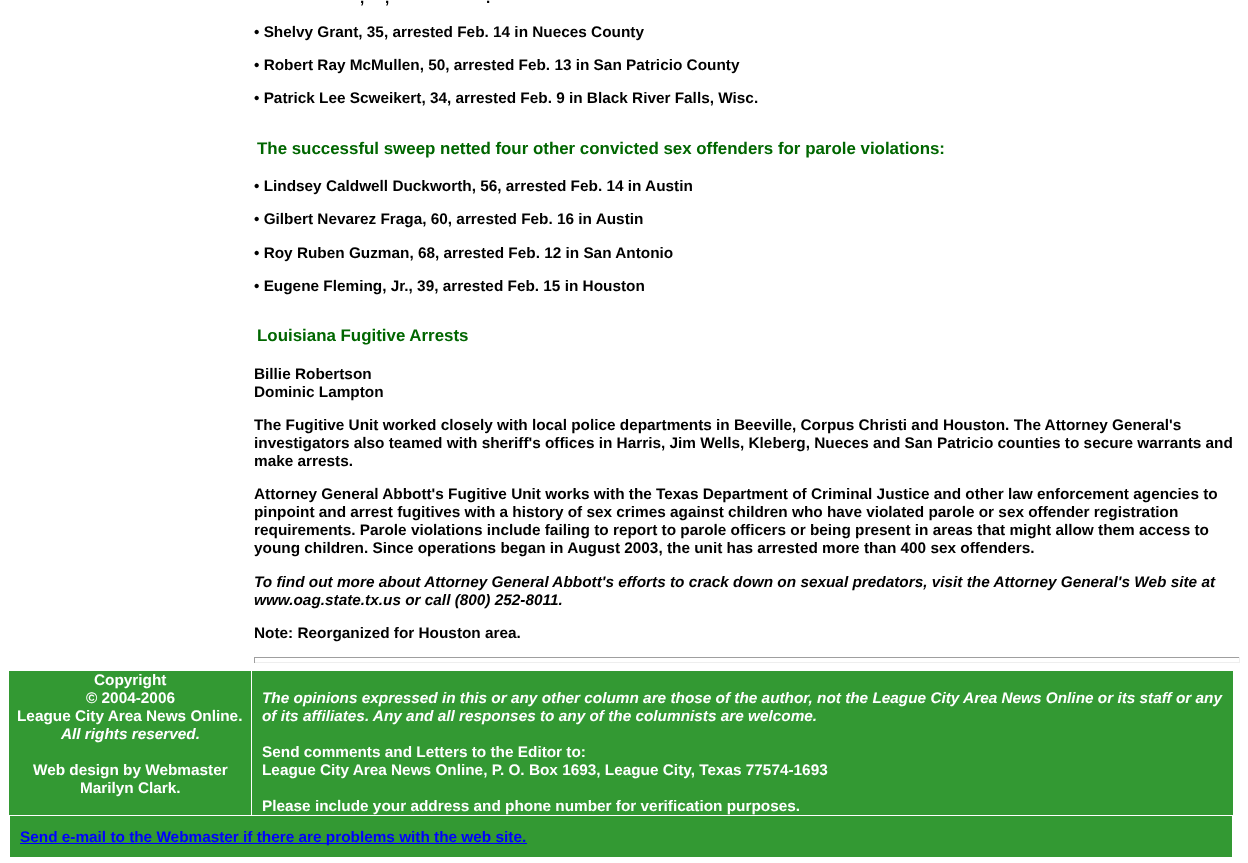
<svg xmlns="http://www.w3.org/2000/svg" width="1248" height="863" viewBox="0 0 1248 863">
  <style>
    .t1 { font: bold 15.35px Liberation Sans; fill: #000; }
    .t2 { font: bold 16.9px Liberation Sans; fill: #060; }
    .t3 { font: italic bold 15.35px Liberation Sans; fill: #000; }
    .t4 { font: bold 15.35px Liberation Sans; fill: #fff; }
    .t5 { font: italic bold 15.35px Liberation Sans; fill: #fff; }
    .t6 { font: bold 15.35px Liberation Sans; fill: #00f; }
  </style>
  <rect width="100%" height="100%" fill="#fff"/>
  <text x="360" y="3" class="t1">,</text>
  <text x="385" y="3" class="t1">,</text>
  <text x="486" y="3" class="t1">.</text>
  <text x="254" y="37" class="t1">• Shelvy Grant, 35, arrested Feb. 14 in Nueces County</text>
  <text x="254" y="70" class="t1">• Robert Ray McMullen, 50, arrested Feb. 13 in San Patricio County</text>
  <text x="254" y="103" class="t1">• Patrick Lee Scweikert, 34, arrested Feb. 9 in Black River Falls, Wisc.</text>
  <text x="257" y="154" class="t2">The successful sweep netted four other convicted sex offenders for parole violations:</text>
  <text x="254" y="191" class="t1">• Lindsey Caldwell Duckworth, 56, arrested Feb. 14 in Austin</text>
  <text x="254" y="224" class="t1">• Gilbert Nevarez Fraga, 60, arrested Feb. 16 in Austin</text>
  <text x="254" y="258" class="t1">• Roy Ruben Guzman, 68, arrested Feb. 12 in San Antonio</text>
  <text x="254" y="291" class="t1">• Eugene Fleming, Jr., 39, arrested Feb. 15 in Houston</text>
  <text x="257" y="341" class="t2">Louisiana Fugitive Arrests</text>
  <text x="254" y="379" class="t1">Billie Robertson</text>
  <text x="254" y="397" class="t1">Dominic Lampton</text>
  <text x="254" y="430" class="t1">The Fugitive Unit worked closely with local police departments in Beeville, Corpus Christi and Houston. The Attorney General's</text>
  <text x="254" y="448" class="t1">investigators also teamed with sheriff's offices in Harris, Jim Wells, Kleberg, Nueces and San Patricio counties to secure warrants and</text>
  <text x="254" y="466" class="t1">make arrests.</text>
  <text x="254" y="499" class="t1">Attorney General Abbott's Fugitive Unit works with the Texas Department of Criminal Justice and other law enforcement agencies to</text>
  <text x="254" y="517" class="t1">pinpoint and arrest fugitives with a history of sex crimes against children who have violated parole or sex offender registration</text>
  <text x="254" y="535" class="t1">requirements. Parole violations include failing to report to parole officers or being present in areas that might allow them access to</text>
  <text x="254" y="553" class="t1">young children. Since operations began in August 2003, the unit has arrested more than 400 sex offenders.</text>
  <text x="254" y="587" class="t3">To find out more about Attorney General Abbott's efforts to crack down on sexual predators, visit the Attorney General's Web site at</text>
  <text x="254" y="605" class="t3">www.oag.state.tx.us or call (800) 252-8011.</text>
  <text x="254" y="638" class="t1">Note: Reorganized for Houston area.</text>
  <rect x="254" y="657" width="986" height="1" fill="#9f9f9f"/>
  <rect x="1239" y="657" width="1" height="6" fill="#eee"/>
  <rect x="254" y="662" width="986" height="1" fill="#eee"/>
  <rect x="254" y="657" width="1" height="6" fill="#9f9f9f"/>
  <rect x="9" y="671" width="242" height="144" fill="#393"/>
  <text x="94" y="685" class="t4">Copyright</text>
  <text x="86" y="703" class="t4">© 2004-2006</text>
  <text x="17" y="721" class="t4">League City Area News Online.</text>
  <text x="61" y="739" class="t5">All rights reserved.</text>
  <rect x="252" y="671" width="981" height="144" fill="#393"/>
  <text x="262" y="703" class="t5">The opinions expressed in this or any other column are those of the author, not the League City Area News Online or its staff or any</text>
  <text x="262" y="721" class="t5">of its affiliates. Any and all responses to any of the columnists are welcome.</text>
  <text x="33" y="775" class="t4">Web design by Webmaster</text>
  <text x="80" y="793" class="t4">Marilyn Clark.</text>
  <text x="262" y="757" class="t4">Send comments and Letters to the Editor to:</text>
  <text x="262" y="775" class="t4">League City Area News Online, P. O. Box 1693, League City, Texas 77574-1693</text>
  <text x="262" y="811" class="t4">Please include your address and phone number for verification purposes.</text>
  <rect x="10" y="816" width="1222" height="41" fill="#393"/>
  <rect x="20" y="843" width="507" height="1" fill="#00f"/>
  <text x="20" y="842" class="t6">Send e-mail to the Webmaster if there are problems with the web site.</text>
</svg>
